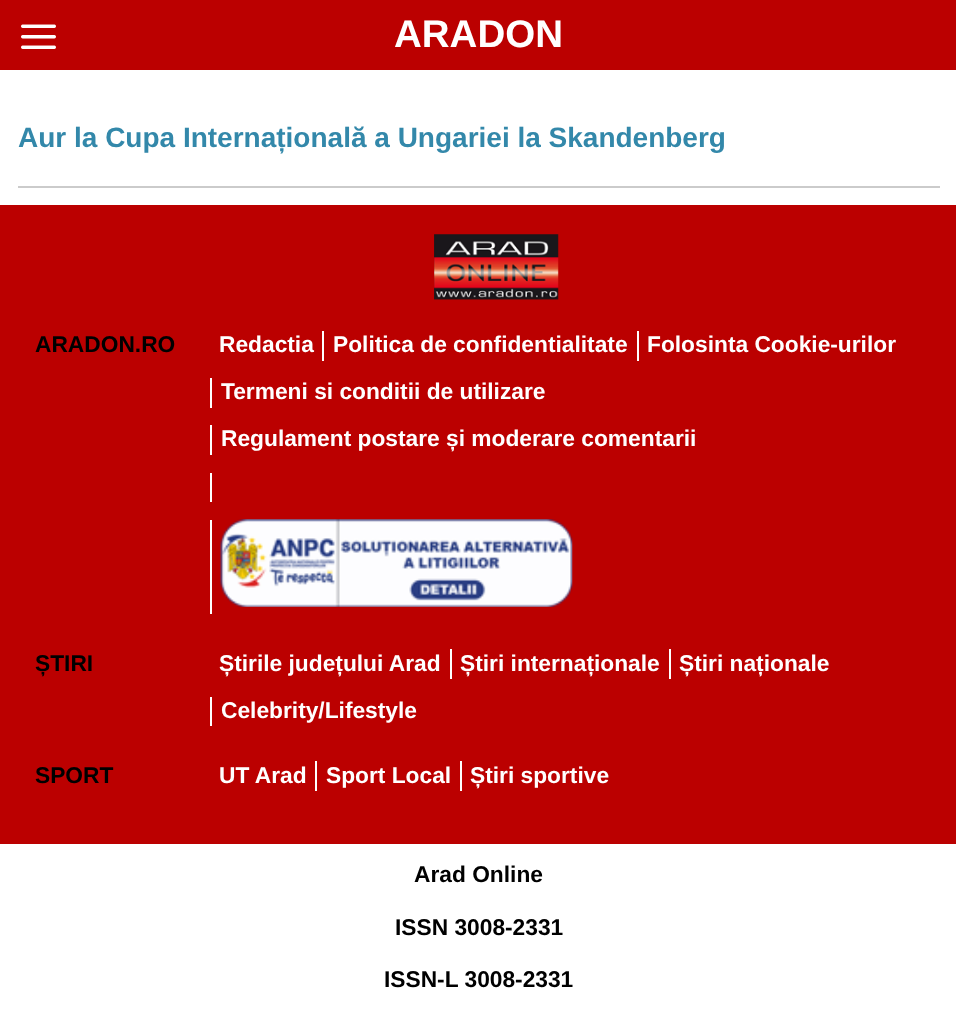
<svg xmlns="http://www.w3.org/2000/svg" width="956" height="1013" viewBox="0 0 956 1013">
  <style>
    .t1 { font: bold 38.5px Liberation Sans; fill: #fff; }
    .t2 { font: bold 28px Liberation Sans; fill: #38a; }
    .t3 { font: bold 22.75px Liberation Sans; fill: #000; }
    .t4 { font: bold 22.75px Liberation Sans; fill: #fff; }
  </style>
  <rect width="100%" height="100%" fill="#fff"/>
  <rect x="0" y="0" width="956" height="70" fill="#b00"/>
  <image x="21" y="24" width="35" height="25" href="images/1.png"/>
  <text x="394" y="47" class="t1">ARADON</text>
  <rect x="18" y="186" width="922" height="2" fill="#cbcbcb"/>
  <text x="18" y="147" class="t2">Aur la Cupa Internațională a Ungariei la Skandenberg</text>
  <rect x="0" y="205" width="956" height="639" fill="#b00"/>
  <image x="434" y="234" width="125" height="66" href="images/2.png"/>
  <text x="35" y="352" class="t3">ARADON.RO</text>
  <text x="219" y="352" class="t4">Redactia</text>
  <rect x="322" y="331" width="2" height="30" fill="#fff"/>
  <text x="333" y="352" class="t4">Politica de confidentialitate</text>
  <rect x="637" y="331" width="2" height="30" fill="#fff"/>
  <text x="647" y="352" class="t4">Folosinta Cookie-urilor</text>
  <rect x="210" y="378" width="2" height="30" fill="#fff"/>
  <text x="221" y="399" class="t4">Termeni si conditii de utilizare</text>
  <rect x="210" y="425" width="2" height="30" fill="#fff"/>
  <text x="221" y="446" class="t4">Regulament postare și moderare comentarii</text>
  <rect x="210" y="473" width="2" height="29" fill="#fff"/>
  <rect x="210" y="520" width="2" height="94" fill="#fff"/>
  <image x="220" y="519" width="353" height="88" href="images/3.png"/>
  <text x="35" y="671" class="t3">ȘTIRI</text>
  <text x="219" y="671" class="t4">Știrile județului Arad</text>
  <rect x="450" y="649" width="2" height="30" fill="#fff"/>
  <text x="460" y="671" class="t4">Știri internaționale</text>
  <rect x="669" y="649" width="2" height="30" fill="#fff"/>
  <text x="679" y="671" class="t4">Știri naționale</text>
  <rect x="210" y="697" width="2" height="29" fill="#fff"/>
  <text x="221" y="718" class="t4">Celebrity/Lifestyle</text>
  <text x="35" y="783" class="t3">SPORT</text>
  <text x="219" y="783" class="t4">UT Arad</text>
  <rect x="315" y="761" width="2" height="30" fill="#fff"/>
  <text x="326" y="783" class="t4">Sport Local</text>
  <rect x="460" y="761" width="2" height="30" fill="#fff"/>
  <text x="470" y="783" class="t4">Știri sportive</text>
  <text x="414" y="882" class="t3">Arad Online</text>
  <text x="395" y="935" class="t3">ISSN 3008-2331</text>
  <text x="384" y="987" class="t3">ISSN-L 3008-2331</text>
</svg>
